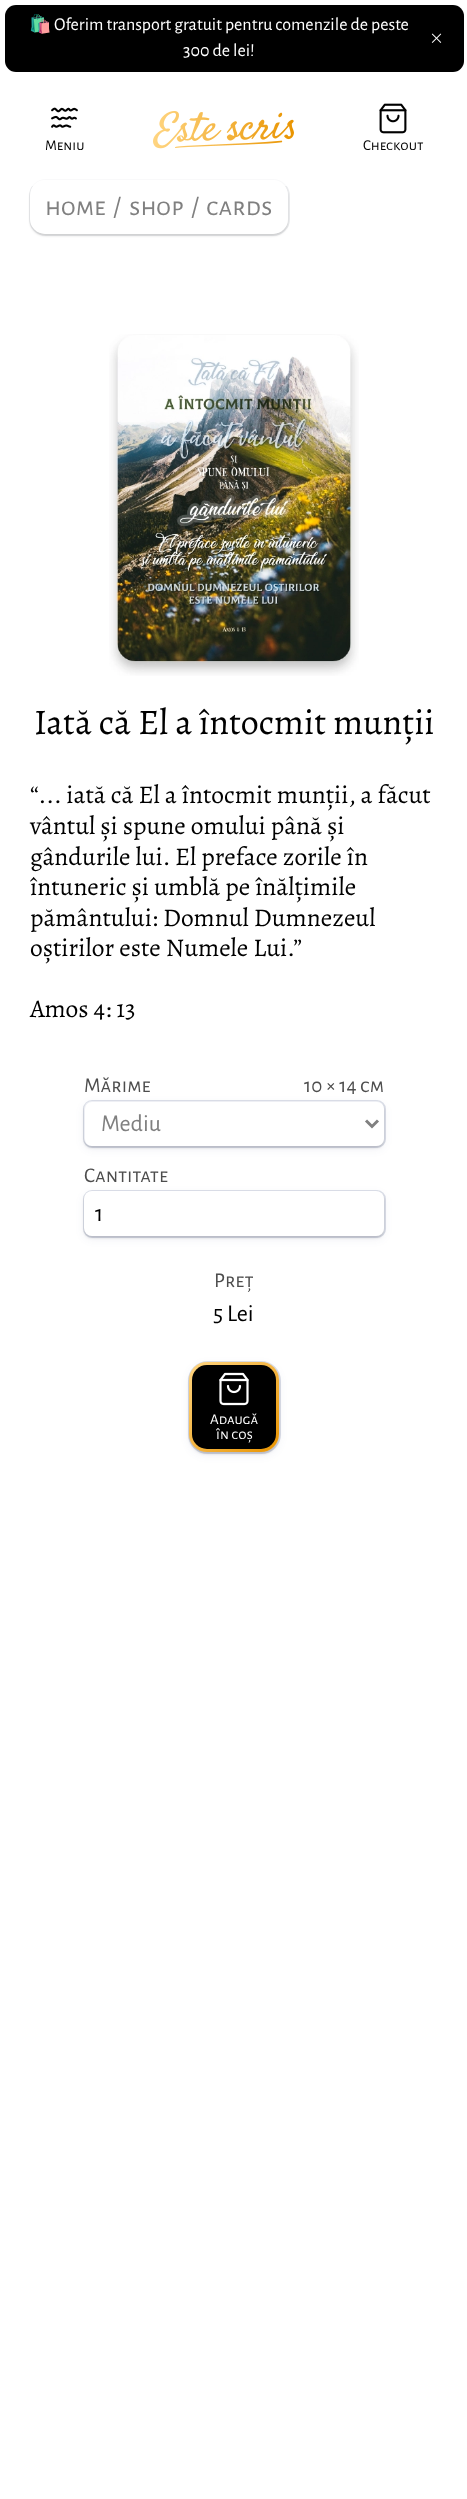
<svg xmlns="http://www.w3.org/2000/svg" width="467" height="2499" viewBox="0 0 467 2499">
  <style>
    .t1 { font: 18px Noto Color Emoji; fill: #fff; }
    .t2 { font: 18px Alegreya Sans; fill: #fff; }
    .t3 { font: 15px Alegreya Sans SC; fill: #000; }
    .t4 { font: 27px Alegreya Sans SC; fill: #808080; }
    .t5 { font: 36px Alegreya; fill: #000; }
    .t6 { font: 25.5px Alegreya; fill: #000; }
    .t7 { font: 21px Alegreya Sans SC; fill: #4d4d4d; }
    .t8 { font: 24px Alegreya Sans; fill: #808080; }
    .t9 { font: 24px Alegreya Sans; fill: #000; }
    .t10 { font: 15px Alegreya Sans SC; fill: #fff; }
  </style>
  <defs>
    <clipPath id="clip1"><path d="M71 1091H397V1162H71ZM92 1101H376C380.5 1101 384 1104.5 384 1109V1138C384 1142.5 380.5 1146 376 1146H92C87.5 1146 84 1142.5 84 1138V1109C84 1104.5 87.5 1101 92 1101Z" clip-rule="evenodd"/></clipPath>
    <clipPath id="clip2"><path d="M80 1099H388V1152H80ZM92 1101H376C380.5 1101 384 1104.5 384 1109V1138C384 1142.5 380.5 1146 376 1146H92C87.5 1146 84 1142.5 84 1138V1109C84 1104.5 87.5 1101 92 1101Z" clip-rule="evenodd"/></clipPath>
    <linearGradient id="g1" gradientUnits="userSpaceOnUse" x1="189" y1="1362" x2="279" y2="1452"><stop offset="0" stop-color="#ffd581"/><stop offset="1" stop-color="#e99400"/></linearGradient>
  </defs>
  <rect width="100%" height="100%" fill="#fff"/>
  <rect x="5" y="5" width="459" height="67" rx="11" fill="#000"/>
  <text x="29" y="30" class="t1">🛍️</text>
  <text x="54" y="30" class="t2">Oferim transport gratuit pentru comenzile de peste</text>
  <text x="183" y="56" class="t2">300 de lei!</text>
  <image x="431" y="33" width="11" height="10" href="images/1.png"/>
  <rect x="30" y="180" width="259" height="55" rx="16" fill="none" stroke="#3c42571a" stroke-width="2"/>
  <rect x="30" y="182" width="258" height="54" rx="15" fill="#0000001f" filter="blur(1px)"/>
  <rect x="30" y="180" width="258" height="54" rx="15" fill="#fff"/>
  <rect x="32" y="179" width="255" height="7" fill="#ffffffb3"/>
  <image x="51" y="107" width="27" height="21" href="images/2.png"/>
  <text x="45" y="150" class="t3">Meniu</text>
  <image x="153" y="111" width="141" height="38" href="images/3.png"/>
  <image x="379" y="103" width="28" height="31" href="images/4.png"/>
  <text x="363" y="150" class="t3">Checkout</text>
  <text x="45" y="215" class="t4">home</text>
  <text x="113" y="215" class="t4">/</text>
  <text x="129" y="215" class="t4">shop</text>
  <text x="191" y="215" class="t4">/</text>
  <text x="206" y="215" class="t4">cards</text>
  <image x="109" y="334" width="250" height="342" href="images/5.png"/>
  <text x="34" y="734" class="t5">Iată că El a întocmit munții</text>
  <text x="30" y="803" class="t6">“... iată că El a întocmit munții, a făcut</text>
  <text x="30" y="834" class="t6">vântul și spune omului până și</text>
  <text x="30" y="865" class="t6">gândurile lui. El preface zorile în</text>
  <text x="30" y="895" class="t6">întuneric și umblă pe înălțimile</text>
  <text x="30" y="926" class="t6">pământului: Domnul Dumnezeul</text>
  <text x="30" y="956" class="t6">oștirilor este Numele Lui.”</text>
  <text x="30" y="1017" class="t6">Amos 4: 13</text>
  <text x="84" y="1092" class="t7">Mărime</text>
  <text x="304" y="1092" class="t7">10 × 14 cm</text>
  <g clip-path="url(#clip1)">
    <rect x="84" y="1104" width="300" height="45" rx="8" fill="#25356f14" filter="blur(4px)"/>
  </g>
  <rect x="84" y="1101" width="301" height="46" rx="8" fill="none" stroke="#25356f29" stroke-width="2"/>
  <g clip-path="url(#clip2)">
    <rect x="84" y="1103" width="300" height="45" rx="8" fill="#0000001f" filter="blur(1px)"/>
  </g>
  <rect x="84" y="1101" width="300" height="45" rx="8" fill="#ffffff80"/>
  <path d="M366 1120.5L372 1126.5L378 1120.5" fill="none" stroke="#808080" stroke-width="3"/>
  <text x="101" y="1131" class="t8">Mediu</text>
  <text x="84" y="1182" class="t7">Cantitate</text>
  <rect x="84" y="1194" width="300" height="45" rx="8" fill="#25356f14" filter="blur(4px)"/>
  <rect x="84" y="1191" width="301" height="46" rx="8" fill="none" stroke="#25356f29" stroke-width="2"/>
  <rect x="84" y="1193" width="300" height="45" rx="8" fill="#0000001f" filter="blur(1px)"/>
  <rect x="84" y="1191" width="300" height="45" rx="8" fill="#fff"/>
  <text x="95" y="1221" class="t9">1</text>
  <text x="214" y="1287" class="t7">Preț</text>
  <text x="213" y="1321" class="t9">5 Lei</text>
  <rect x="189" y="1365" width="90" height="90" rx="18" fill="#25356f14" filter="blur(4px)"/>
  <rect x="189" y="1362" width="91" height="91" rx="19" fill="none" stroke="#25356f29" stroke-width="2"/>
  <rect x="189" y="1364" width="90" height="90" rx="18" fill="#0000001f" filter="blur(1px)"/>
  <rect x="189" y="1362" width="90" height="90" rx="18" fill="url(#g1)"/>
  <rect x="192" y="1365" width="84" height="84" rx="15" fill="#000"/>
  <image x="219" y="1372" width="30" height="34" href="images/6.png"/>
  <text x="210" y="1424" class="t10">Adaugă</text>
  <text x="216" y="1439" class="t10">în coș</text>
</svg>
